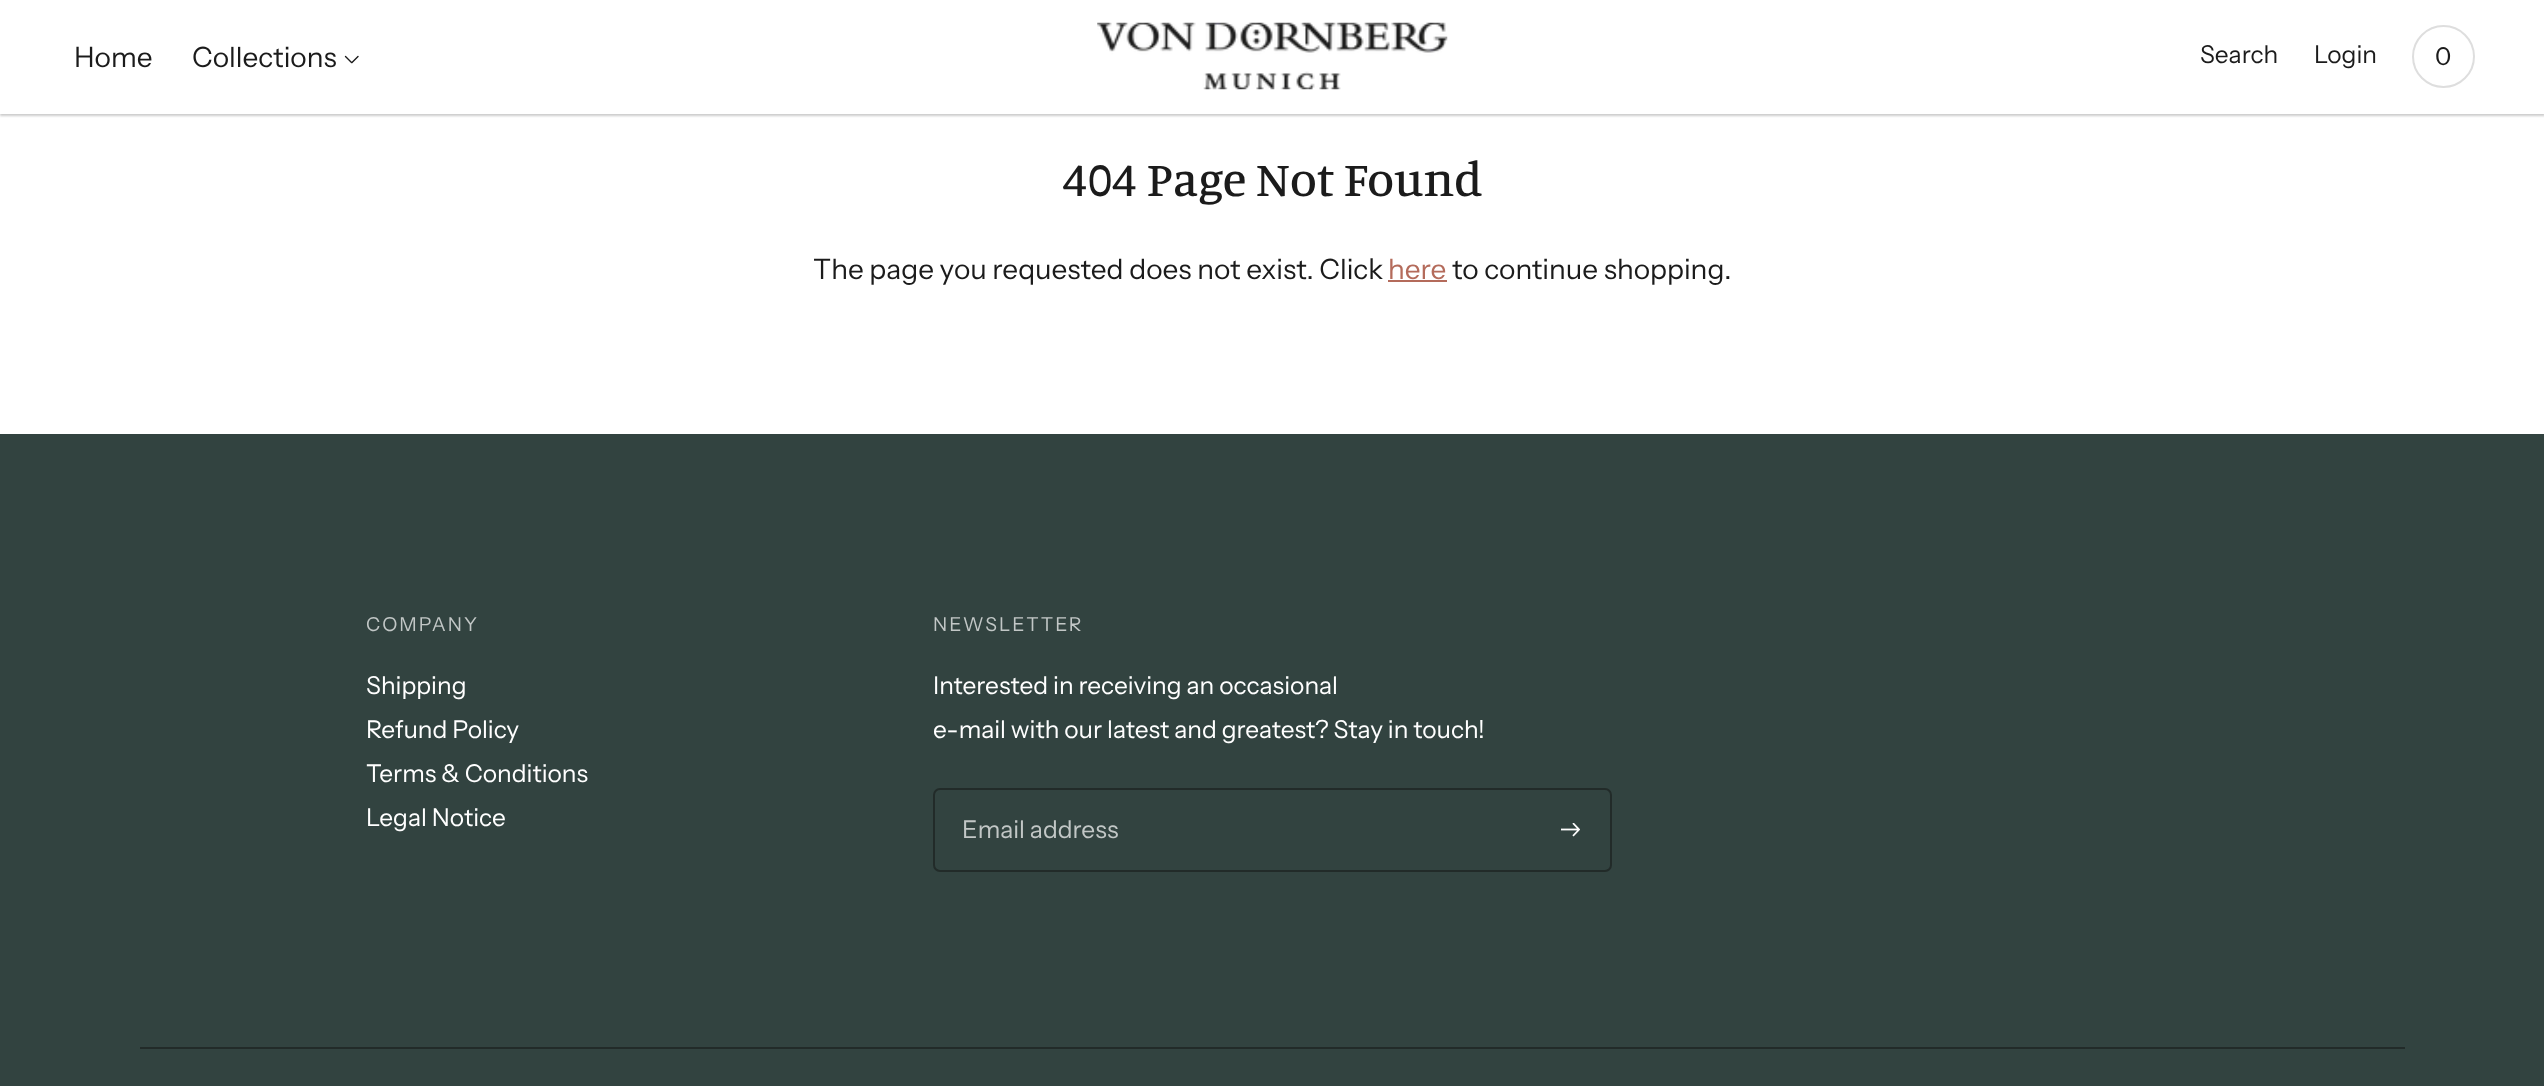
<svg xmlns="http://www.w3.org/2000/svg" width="2544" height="1086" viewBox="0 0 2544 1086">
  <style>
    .t1 { font: 28px Instrument Sans; fill: #1b1b1b; }
    .t2 { font: 24.5px Instrument Sans; fill: #1b1b1b; }
    .t3 { font: 500 49px Manuale; fill: #1b1b1b; }
    .t4 { font: 28px Instrument Sans; fill: #b46b5b; }
    .t5 { font: 19.25px Instrument Sans; letter-spacing: 2px; fill: #c2c7c6; }
    .t6 { font: 24.5px Instrument Sans; fill: #fff; }
    .t7 { font: 24.5px Instrument Sans; fill: #c2c7c6; }
  </style>
  <rect width="100%" height="100%" fill="#fff"/>
  <rect x="0" y="2" width="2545" height="114" fill="#00000033" filter="blur(1px)"/>
  <rect x="0" y="0" width="2544" height="114" fill="#fff"/>
  <text x="74" y="67" class="t1">Home</text>
  <text x="192" y="67" class="t1">Collections</text>
  <path d="M345.5 56.5L351.5 62.5H352L358 56.5" fill="none" stroke="#1b1b1b" stroke-width="1.4" stroke-linecap="round" stroke-linejoin="round"/>
  <image x="1097" y="22" width="351" height="68" href="images/1.png"/>
  <text x="2200" y="63" class="t2">Search</text>
  <text x="2314" y="63" class="t2">Login</text>
  <circle cx="2443.5" cy="56.5" r="30.5" fill="none" stroke="#dedede" stroke-width="2"/>
  <text x="2435" y="65" class="t2">0</text>
  <text x="1063" y="196" class="t3">404 Page Not Found</text>
  <text x="813" y="279" class="t1">The page you requested does not exist. Click</text>
  <text x="1388" y="279" class="t4">here</text>
  <rect x="1388" y="280" width="59" height="2" fill="#b46b5b"/>
  <text x="1452" y="279" class="t1">to continue shopping.</text>
  <rect x="0" y="434" width="2544" height="652" fill="#324340"/>
  <text x="366" y="631" class="t5">COMPANY</text>
  <text x="366" y="694" class="t6">Shipping</text>
  <text x="366" y="738" class="t6">Refund Policy</text>
  <text x="366" y="782" class="t6">Terms &amp; Conditions</text>
  <text x="366" y="826" class="t6">Legal Notice</text>
  <text x="933" y="631" class="t5">NEWSLETTER</text>
  <text x="933" y="694" class="t6">Interested in receiving an occasional</text>
  <text x="933" y="738" class="t6">e-mail with our latest and greatest? Stay in touch!</text>
  <rect x="934" y="789" width="677" height="82" rx="6" fill="none" stroke="#222b29" stroke-width="2"/>
  <text x="962" y="838" class="t7">Email address</text>
  <image x="1561" y="823" width="19" height="14" href="images/2.png"/>
  <rect x="140" y="1047" width="2265" height="2" fill="#222b29"/>
</svg>
